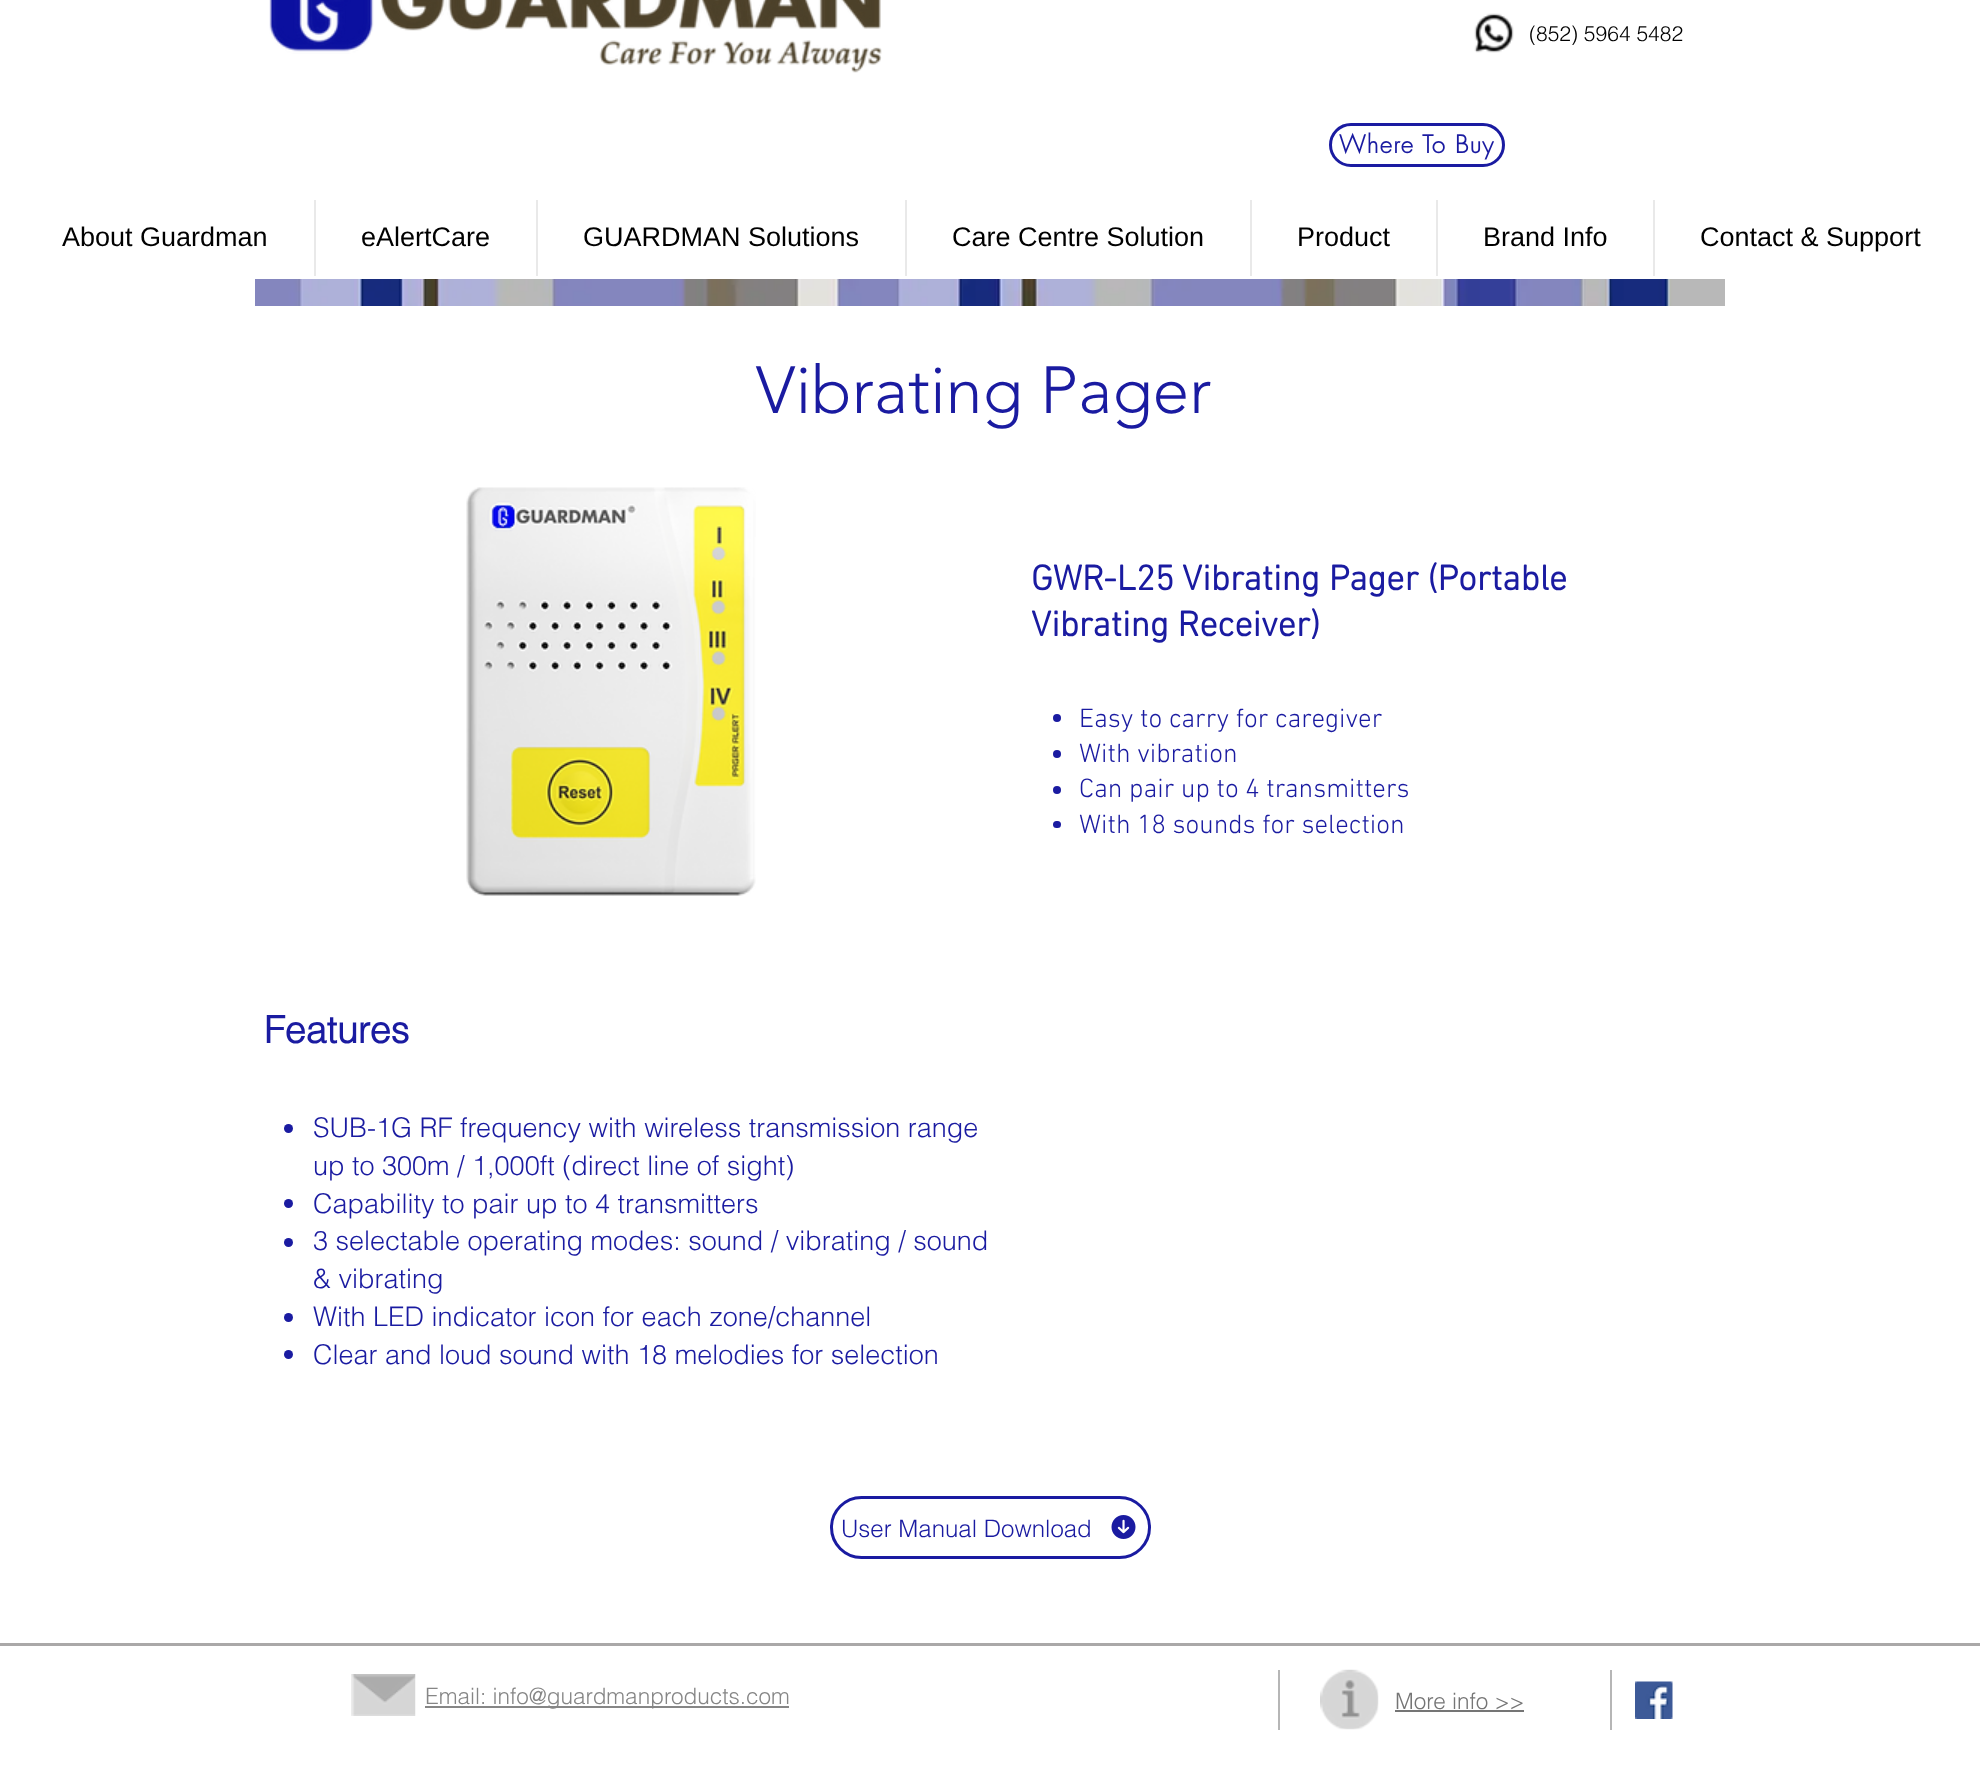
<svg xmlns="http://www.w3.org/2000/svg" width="1980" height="1772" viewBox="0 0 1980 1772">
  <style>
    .t1 { font: 300 21px helvetica; fill: #000; }
    .t2 { font: bold 24px futura; letter-spacing: 1.25px; fill: #1a1ba1; }
    .t3 { font: 27px Liberation Sans; fill: #000; }
    .t4 { font: 300 66px 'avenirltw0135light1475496'; fill: #1a1ba1; }
    .t5 { font: bold 36px 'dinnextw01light'; fill: #1a1ba1; }
    .t6 { font: 300 27px 'dinnextw01light'; fill: #1a1ba1; }
    .t7 { font: bold 37.5px helvetica; fill: #1a1ba1; }
    .t8 { font: 300 27px helvetica; fill: #1a1ba1; }
    .t9 { font: 300 24px helvetica; fill: #1a1ba1; }
    .t10 { font: 300 22.5px helvetica; fill: #868686; }
    .t11 { font: 300 22.5px helvetica; fill: #757575; }
  </style>
  <rect width="100%" height="100%" fill="#fff"/>
  <image x="269" y="0" width="613" height="73" href="images/1.png"/>
  <image x="1474" y="13" width="40" height="40" href="images/2.png"/>
  <text x="1529" y="41" class="t1">(852) 5964 5482</text>
  <rect x="1330.5" y="124.5" width="173" height="41" rx="20.5" fill="none" stroke="#1a1ba1" stroke-width="3"/>
  <text x="1339" y="153" class="t2">Where To Buy</text>
  <text x="62" y="246" class="t3">About Guardman</text>
  <rect x="314" y="200" width="2" height="76" fill="#e9e9e9"/>
  <text x="361" y="246" class="t3">eAlertCare</text>
  <rect x="536" y="200" width="2" height="76" fill="#e9e9e9"/>
  <text x="583" y="246" class="t3">GUARDMAN Solutions</text>
  <rect x="905" y="200" width="2" height="76" fill="#e9e9e9"/>
  <text x="952" y="246" class="t3">Care Centre Solution</text>
  <rect x="1250" y="200" width="2" height="76" fill="#e9e9e9"/>
  <text x="1297" y="246" class="t3">Product</text>
  <rect x="1436" y="200" width="2" height="76" fill="#e9e9e9"/>
  <text x="1483" y="246" class="t3">Brand Info</text>
  <rect x="1653" y="200" width="2" height="76" fill="#e9e9e9"/>
  <text x="1700" y="246" class="t3">Contact &amp; Support</text>
  <image x="255" y="279" width="1470" height="27" href="images/3.png"/>
  <text x="756" y="413" class="t4">Vibrating Pager</text>
  <image x="466" y="487" width="290" height="409" href="images/4.png"/>
  <text x="1031" y="590" class="t5">GWR-L25 Vibrating Pager (Portable</text>
  <text x="1031" y="636" class="t5">Vibrating Receiver)</text>
  <circle cx="1057" cy="718" r="4" fill="#1a1ba1"/>
  <text x="1079" y="727" class="t6">Easy to carry for caregiver</text>
  <circle cx="1057" cy="754" r="4" fill="#1a1ba1"/>
  <text x="1079" y="762" class="t6">With vibration</text>
  <circle cx="1057" cy="790" r="4" fill="#1a1ba1"/>
  <text x="1079" y="797" class="t6">Can pair up to 4 transmitters</text>
  <rect x="1053" y="821" width="8" height="7" rx="3.5" fill="#1a1ba1"/>
  <text x="1079" y="833" class="t6">With 18 sounds for selection</text>
  <text x="264" y="1043" class="t7">Features</text>
  <circle cx="288.5" cy="1128.5" r="4.5" fill="#1a1ba1"/>
  <text x="313" y="1137" class="t8">SUB-1G RF frequency with wireless transmission range</text>
  <text x="313" y="1175" class="t8">up to 300m / 1,000ft (direct line of sight)</text>
  <circle cx="288.5" cy="1203.5" r="4.5" fill="#1a1ba1"/>
  <text x="313" y="1213" class="t8">Capability to pair up to 4 transmitters</text>
  <circle cx="288.5" cy="1242.5" r="4.5" fill="#1a1ba1"/>
  <text x="313" y="1250" class="t8">3 selectable operating modes: sound / vibrating / sound</text>
  <text x="313" y="1288" class="t8">&amp; vibrating</text>
  <circle cx="288.5" cy="1317.5" r="4.5" fill="#1a1ba1"/>
  <text x="313" y="1326" class="t8">With LED indicator icon for each zone/channel</text>
  <circle cx="288.5" cy="1354.5" r="4.5" fill="#1a1ba1"/>
  <text x="313" y="1364" class="t8">Clear and loud sound with 18 melodies for selection</text>
  <rect x="831.5" y="1497.5" width="318" height="60" rx="30" fill="none" stroke="#1a1ba1" stroke-width="3"/>
  <text x="841" y="1537" class="t9">User Manual Download</text>
  <image x="1111" y="1515" width="25" height="24" href="images/5.png"/>
  <rect x="0" y="1643" width="1980" height="3" fill="#aaa8a8"/>
  <image x="351" y="1674" width="65" height="42" href="images/6.png"/>
  <rect x="425" y="1706" width="364" height="2" fill="#868686"/>
  <text x="425" y="1704" class="t10">Email: info@guardmanproducts.com</text>
  <rect x="1278" y="1670" width="2" height="60" fill="#b6b6b6"/>
  <image x="1320" y="1669" width="59" height="61" href="images/7.png"/>
  <text x="1395" y="1709" class="t11">More info &gt;&gt;</text>
  <rect x="1395" y="1710" width="129" height="2" fill="#757575"/>
  <rect x="1610" y="1670" width="2" height="60" fill="#b6b6b6"/>
  <image x="1635" y="1681" width="38" height="38" href="images/8.png"/>
</svg>
